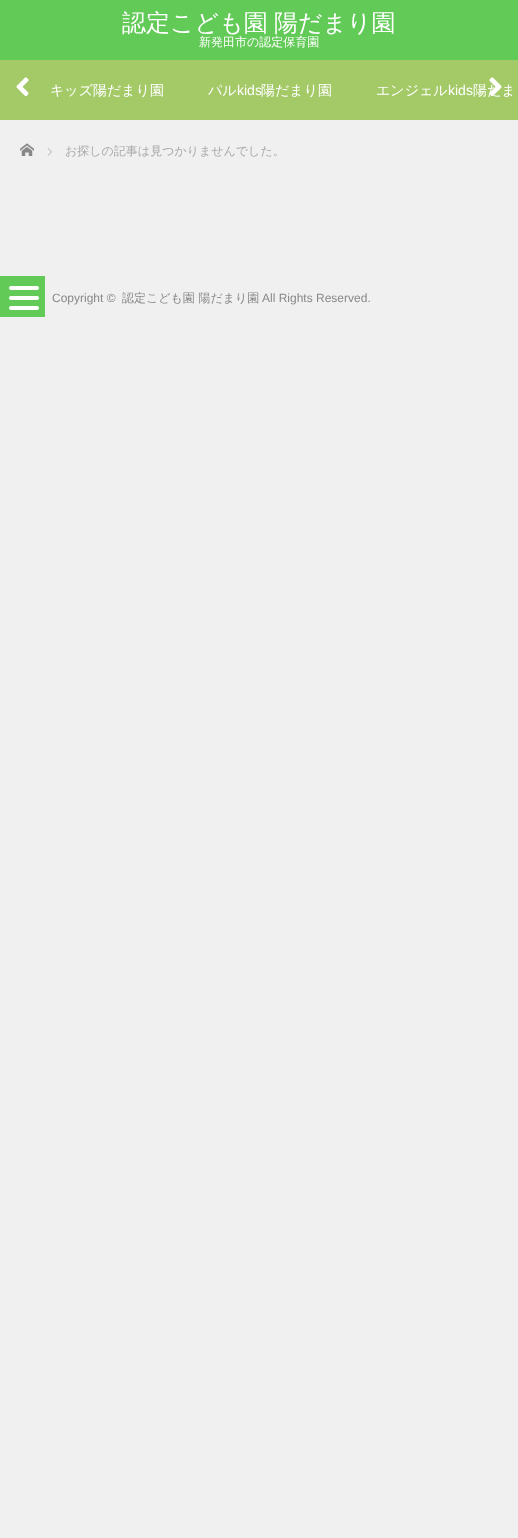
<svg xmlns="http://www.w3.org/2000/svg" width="518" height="1538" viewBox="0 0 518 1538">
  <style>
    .t1 { font: 500 24px WenQuanYi Zen Hei; fill: #fff; }
    .t2 { font: 500 12px WenQuanYi Zen Hei; fill: #fff; }
    .t3 { font: 500 14px WenQuanYi Zen Hei; fill: #fff; }
    .t4 { font: 14px Liberation Sans; fill: #fff; }
    .t5 { font: 500 12px WenQuanYi Zen Hei; fill: #aaa; }
    .t6 { font: 12px Liberation Sans; fill: #888; }
    .t7 { font: 500 12px WenQuanYi Zen Hei; fill: #888; }
  </style>
  <rect width="100%" height="100%" fill="#f0f0f0"/>
  <rect x="0" y="0" width="518" height="60" fill="#62ca57"/>
  <text x="122" y="31" word-spacing="-1" class="t1">認定こども園 陽だまり園</text>
  <text x="199" y="46" class="t2">新発田市の認定保育園</text>
  <rect x="0" y="60" width="518" height="60" fill="#a4ca68"/>
  <image x="16" y="77" width="13" height="20" href="images/1.png"/>
  <text x="473" y="95" class="t3">陽だま</text>
  <image x="489" y="77" width="13" height="20" href="images/2.png"/>
  <text x="50" y="95" class="t3">キッズ陽だまり園</text>
  <text x="208" y="95" class="t3">パル</text>
  <text x="237" y="95" class="t4">kids</text>
  <text x="261" y="95" class="t3">陽だまり園</text>
  <text x="376" y="95" class="t3">エンジェル</text>
  <text x="448" y="95" class="t4">kids</text>
  <image x="20" y="143" width="14" height="13" href="images/3.png"/>
  <image x="47" y="148" width="5" height="8" href="images/4.png"/>
  <text x="65" y="155" class="t5">お探しの記事は見つかりませんでした。</text>
  <rect x="0" y="276" width="45" height="41" fill="#62ca57"/>
  <rect x="9" y="286" width="30" height="4" rx="2" fill="#fff"/>
  <rect x="9" y="296" width="30" height="4" rx="2" fill="#fff"/>
  <rect x="9" y="306" width="30" height="4" rx="2" fill="#fff"/>
  <text x="52" y="302" class="t6">Copyright ©</text>
  <text x="122" y="302" class="t7">認定こども園 陽だまり園</text>
  <text x="262" y="302" class="t6">All Rights Reserved.</text>
</svg>
